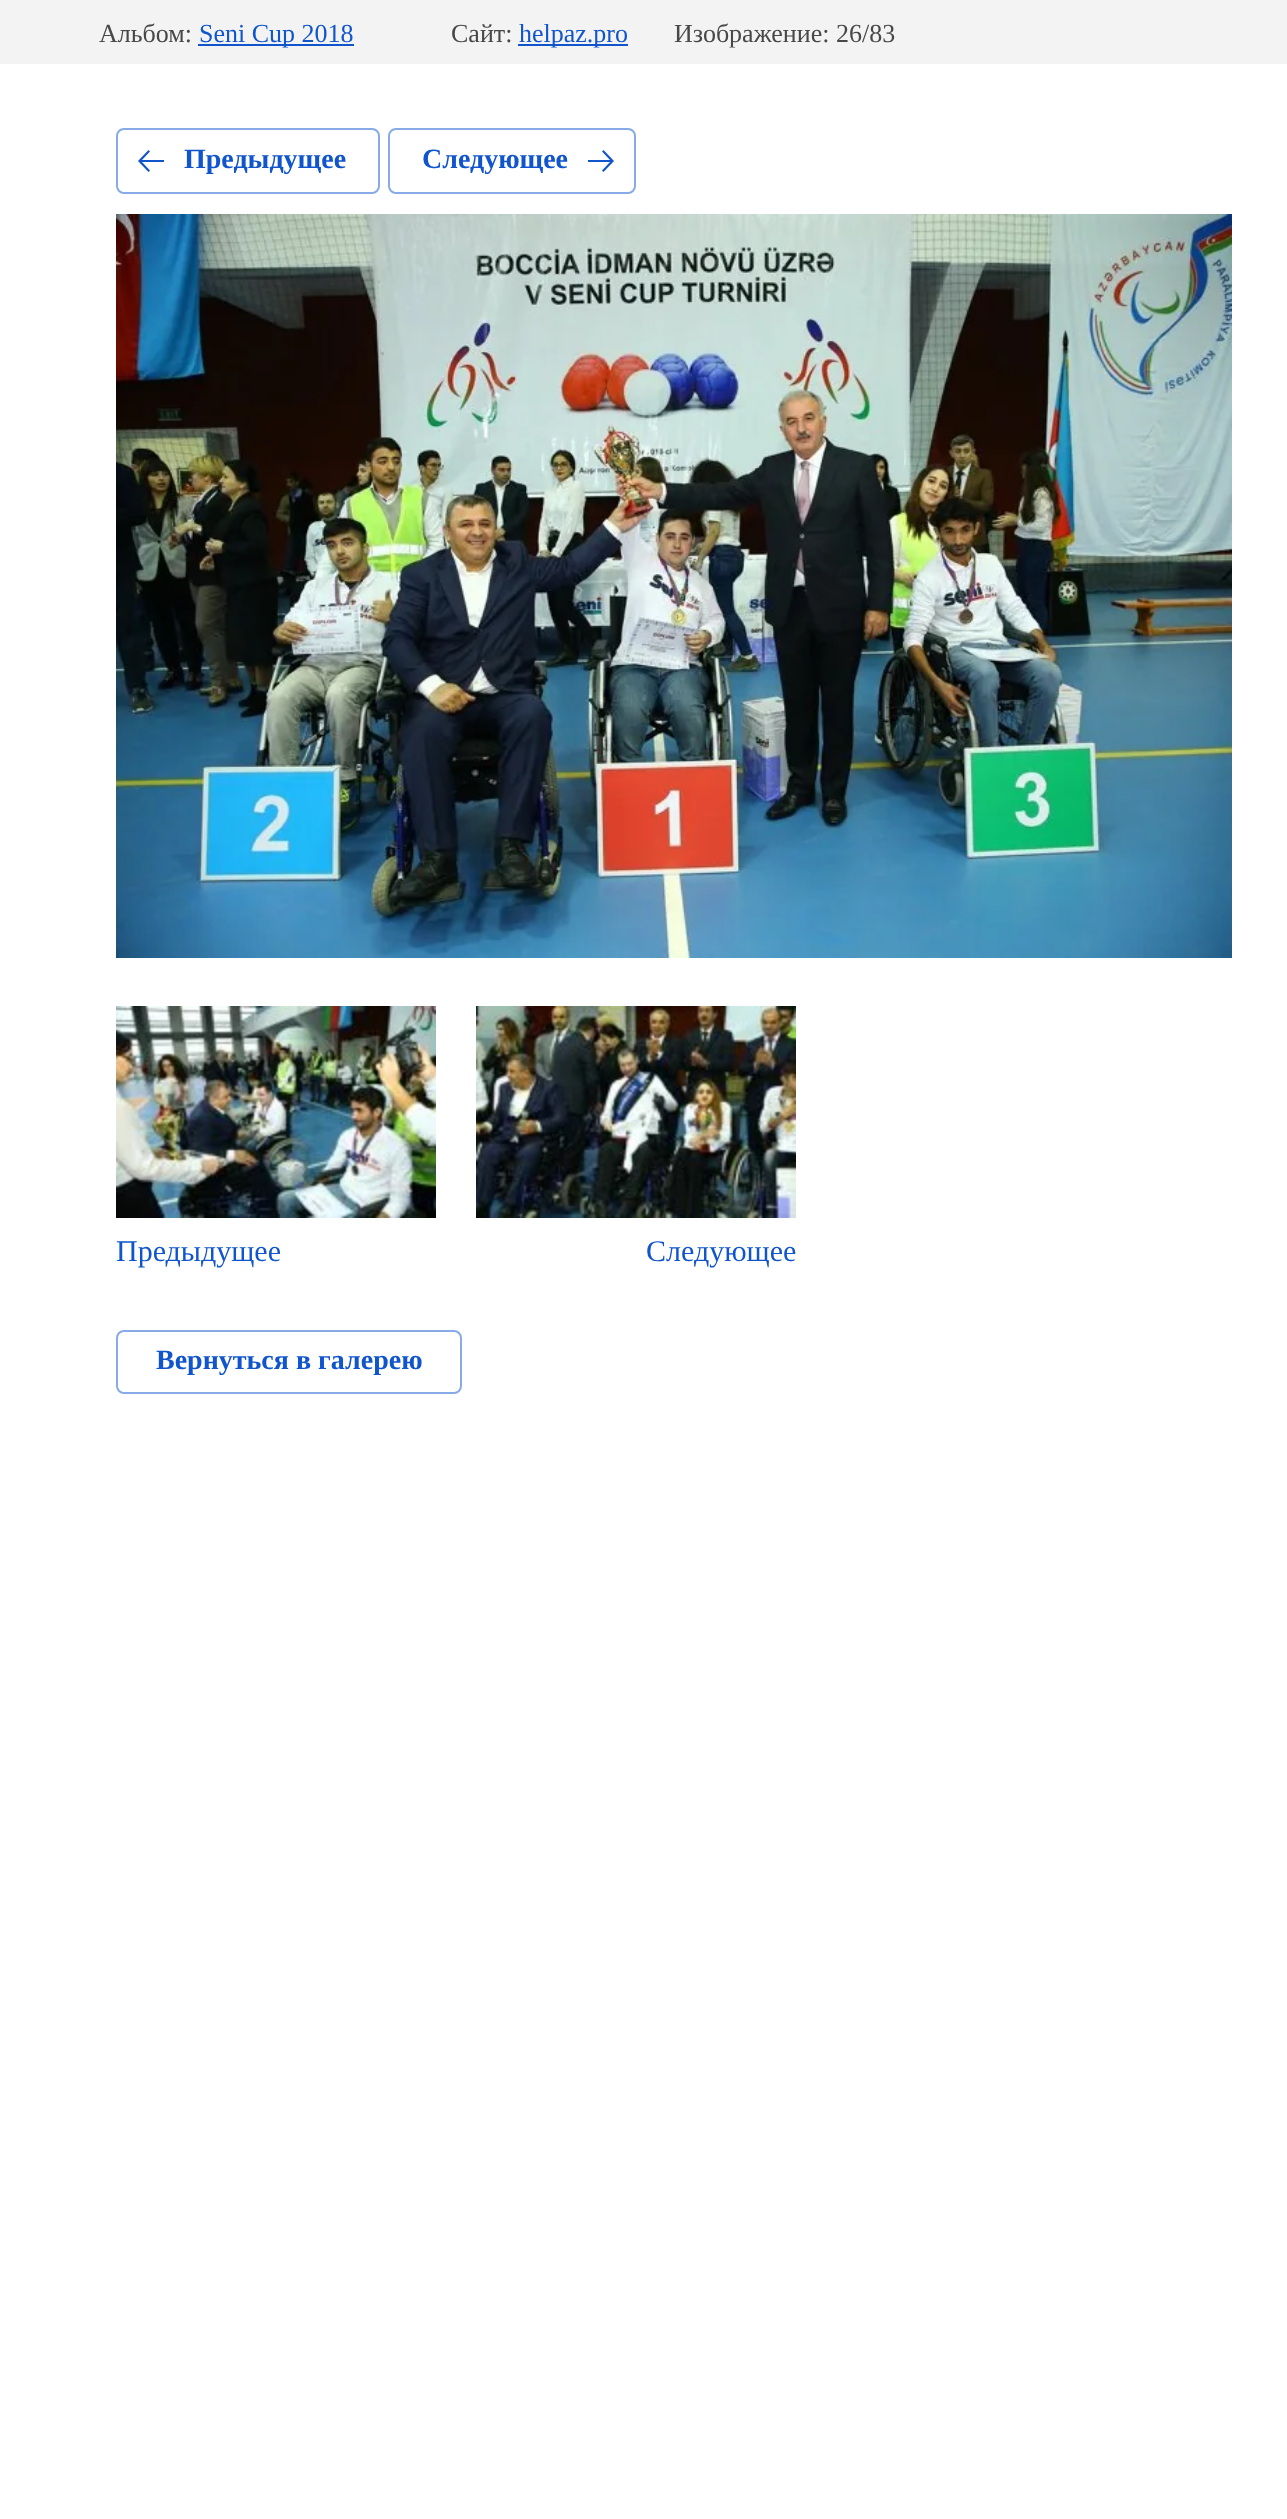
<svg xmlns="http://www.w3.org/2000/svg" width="1287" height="2519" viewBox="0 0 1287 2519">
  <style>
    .t1 { font: 26px Liberation Serif; fill: #484848; }
    .t2 { font: 26px Liberation Serif; fill: #15c; }
    .t3 { font: bold 28px Liberation Serif; fill: #15c; }
    .t4 { font: 30px Liberation Serif; fill: #15c; }
  </style>
  <rect width="100%" height="100%" fill="#fff"/>
  <rect x="0" y="0" width="1287" height="64" fill="#f3f3f3"/>
  <text x="99" y="42" class="t1">Альбом:</text>
  <rect x="198" y="44" width="156" height="2" fill="#15c"/>
  <text x="199" y="42" class="t2">Seni Cup 2018</text>
  <text x="451" y="42" class="t1">Сайт:</text>
  <rect x="518" y="44" width="110" height="2" fill="#15c"/>
  <text x="519" y="42" class="t2">helpaz.pro</text>
  <text x="674" y="42" class="t1">Изображение: 26/83</text>
  <rect x="117" y="129" width="262" height="64" rx="7" fill="none" stroke="#88aae6" stroke-width="2"/>
  <path d="M150 151.5L148.5 150L138 161L148.5 172L150 170.5L142 162H164V160H142Z" fill="#15c"/>
  <text x="184" y="168" class="t3">Предыдущее</text>
  <rect x="389" y="129" width="246" height="64" rx="7" fill="none" stroke="#88aae6" stroke-width="2"/>
  <text x="422" y="168" class="t3">Следующее</text>
  <path d="M602 151.5L603.5 150L614 161L603.5 172L602 170.5L610 162H588V160H610Z" fill="#15c"/>
  <image x="116" y="214" width="1116" height="744" href="images/1.png"/>
  <image x="116" y="1006" width="320" height="212" href="images/2.png"/>
  <text x="116" y="1261" class="t4">Предыдущее</text>
  <image x="476" y="1006" width="320" height="212" href="images/3.png"/>
  <text x="646" y="1261" class="t4">Следующее</text>
  <rect x="117" y="1331" width="344" height="62" rx="7" fill="none" stroke="#88aae6" stroke-width="2"/>
  <text x="156" y="1369" class="t3">Вернуться в галерею</text>
</svg>
